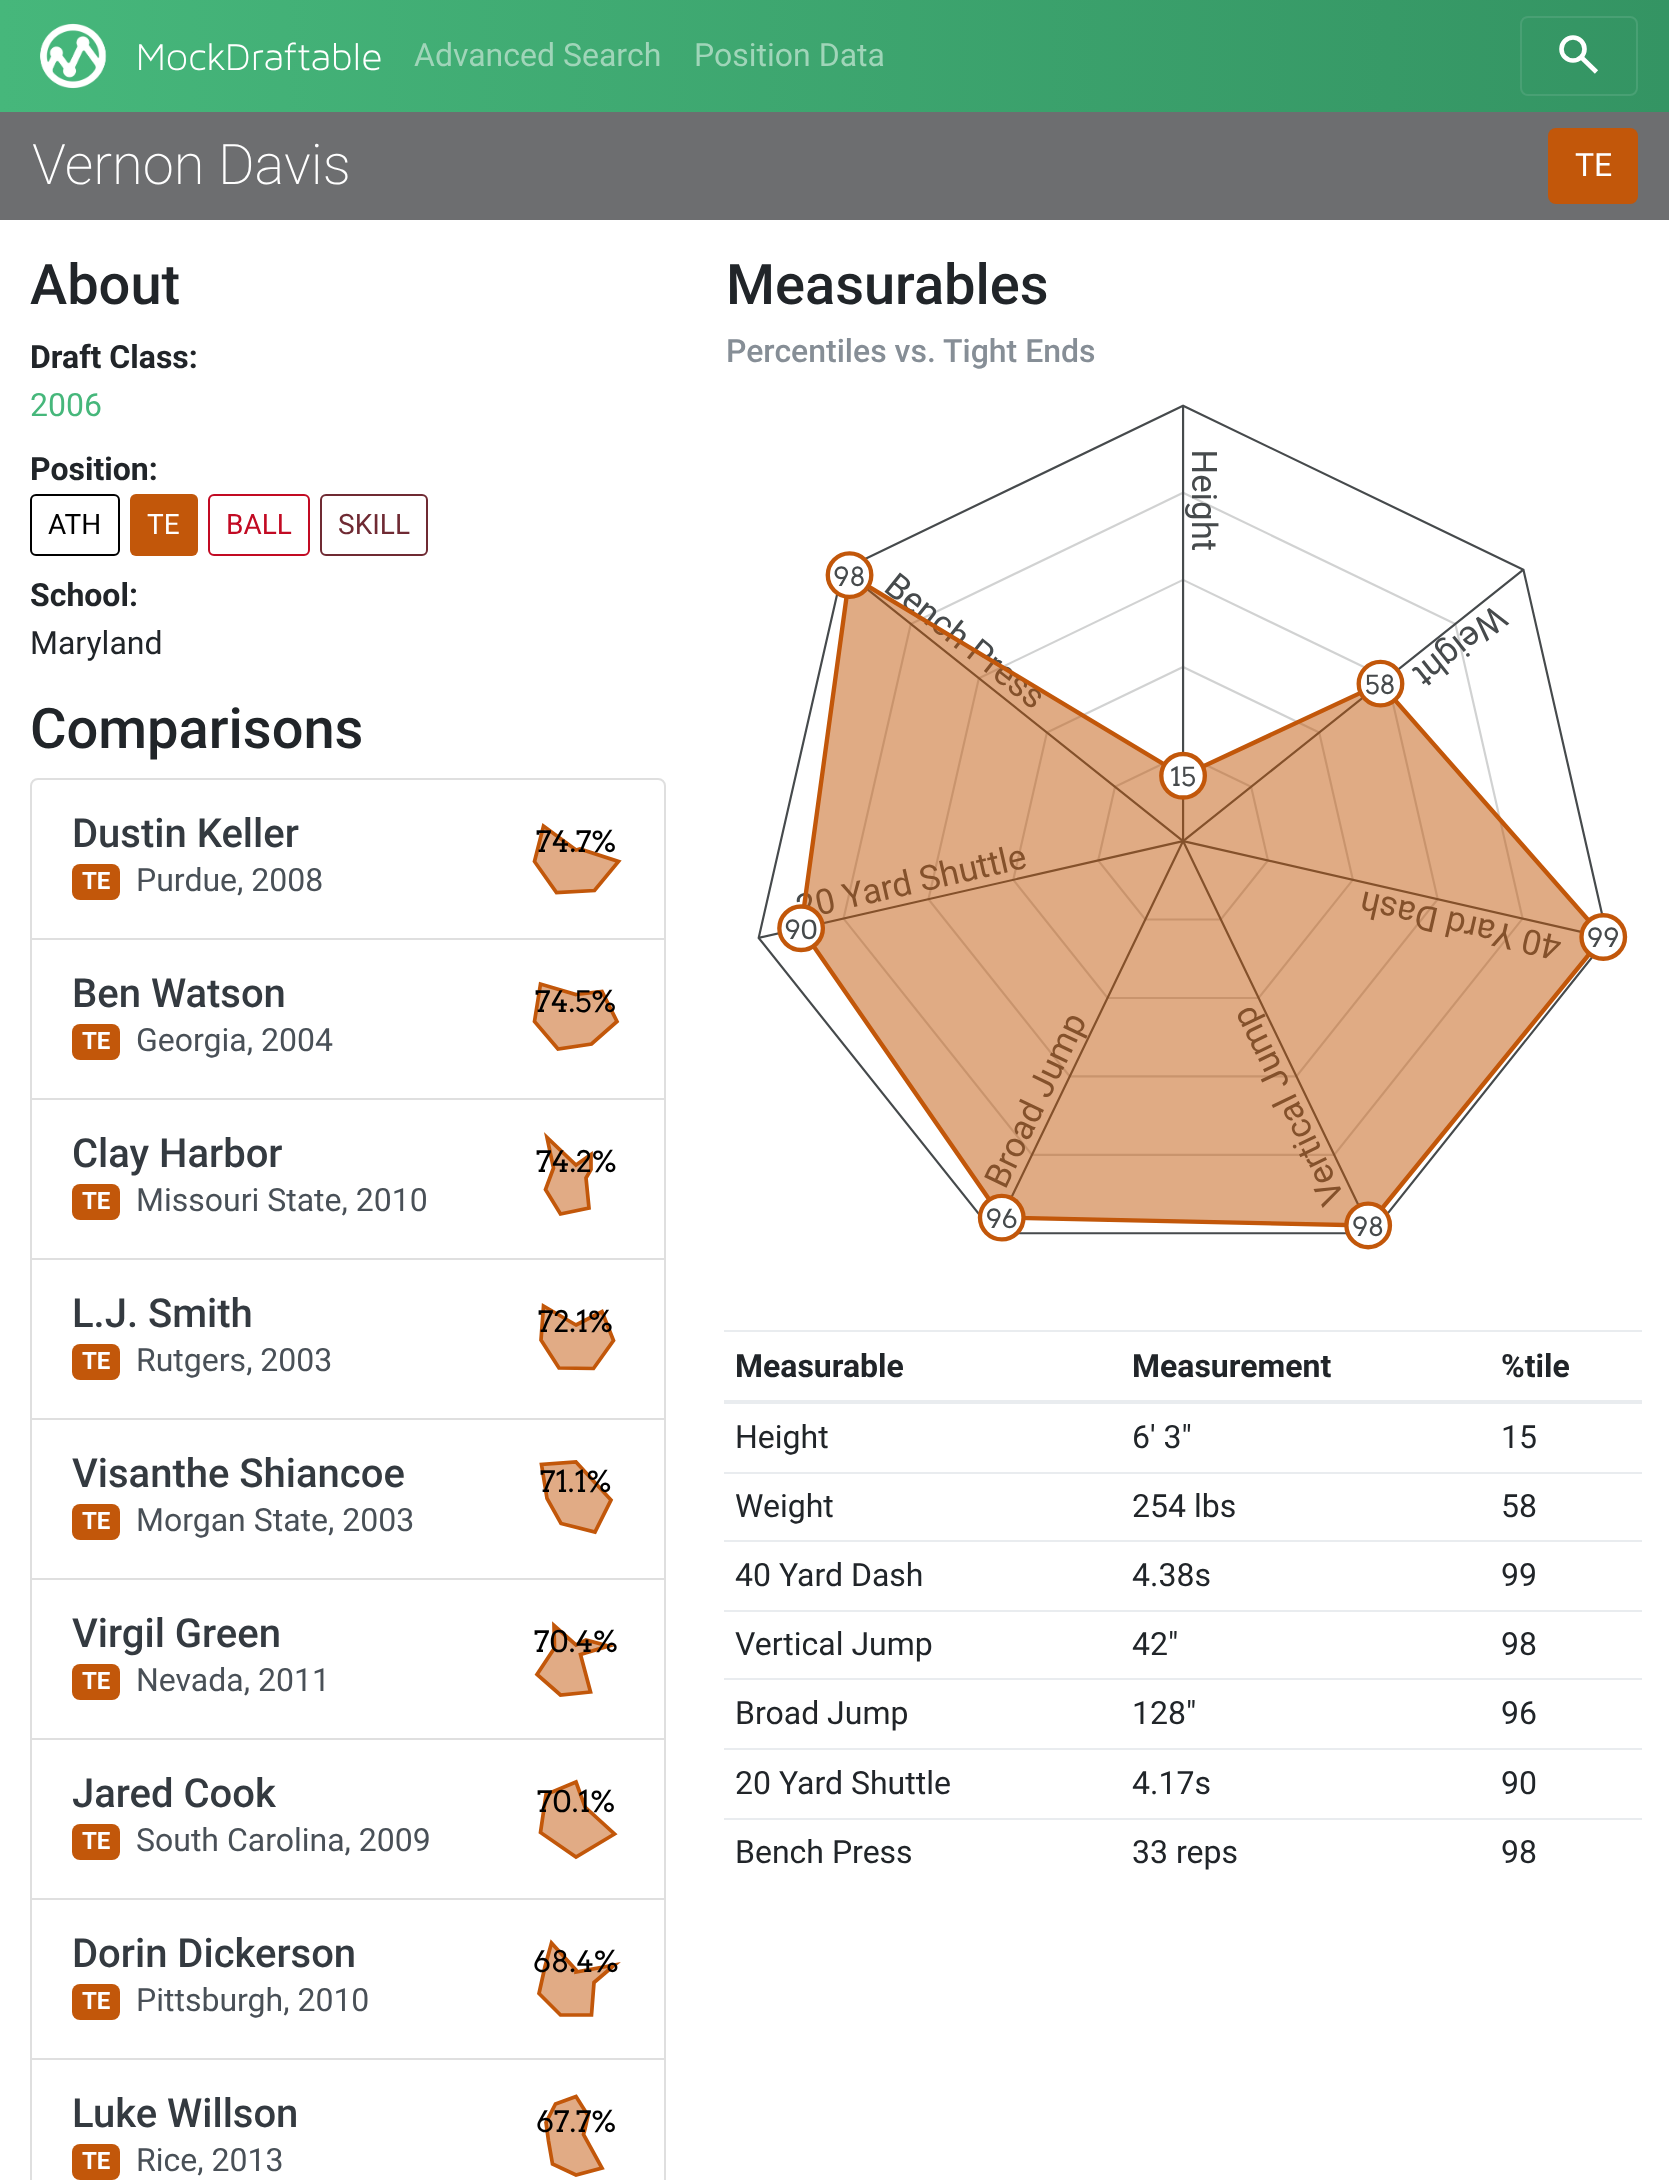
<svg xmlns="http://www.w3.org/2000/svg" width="1669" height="2180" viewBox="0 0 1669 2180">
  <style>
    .t1 { font: 300 40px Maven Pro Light; fill: #fff; }
    .t2 { font: 32px Roboto; fill: #a0d5b9; }
    .t3 { font: 200 56px Roboto; fill: #fff; }
    .t4 { font: 32px Roboto; fill: #fff; }
    .t5 { font: 500 56px Roboto; fill: #212529; }
    .t6 { font: bold 32px Roboto; fill: #212529; }
    .t7 { font: 32px Roboto; fill: #46b77b; }
    .t8 { font: 28px Roboto; fill: #000; }
    .t9 { font: 28px Roboto; fill: #fff; }
    .t10 { font: 28px Roboto; fill: #c20a23; }
    .t11 { font: 28px Roboto; fill: #6f2a33; }
    .t12 { font: 32px Roboto; fill: #212529; }
    .t13 { font: 500 40px Roboto; fill: #343a40; }
    .t14 { font: bold 24px Roboto; fill: #fff; }
    .t15 { font: 32px Roboto; fill: #495057; }
    .t16 { font: 29.5px Arvo; fill: #000; }
    .t17 { font: 500 32px Roboto; fill: #868e96; }
  </style>
  <defs>
    <linearGradient id="g1" gradientUnits="userSpaceOnUse" x1="0" y1="56" x2="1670" y2="56"><stop offset="0" stop-color="#46b77b"/><stop offset="1" stop-color="#349463"/></linearGradient>
  </defs>
  <rect width="100%" height="100%" fill="#fff"/>
  <rect x="0" y="0" width="1669" height="112" fill="url(#g1)"/>
  <image x="40" y="23" width="67" height="66" href="images/1.png"/>
  <text x="136" y="70" class="t1">MockDraftable</text>
  <text x="414" y="66" class="t2">Advanced Search</text>
  <text x="694" y="66" class="t2">Position Data</text>
  <rect x="1521" y="17" width="116" height="78" rx="7" fill="none" stroke="#49a074" stroke-width="2"/>
  <circle cx="1573" cy="49" r="11.5" fill="none" stroke="#fff" stroke-width="4.6"/>
  <path d="M1581 57L1596.5 72" fill="none" stroke="#fff" stroke-width="4.6"/>
  <rect x="0" y="112" width="1669" height="108" fill="#6d6e70"/>
  <text x="32" y="184" class="t3">Vernon Davis</text>
  <rect x="1548" y="128" width="90" height="76" rx="8" fill="#c2570a"/>
  <text x="1575" y="176" class="t4">TE</text>
  <text x="30" y="304" class="t5">About</text>
  <text x="30" y="368" class="t6">Draft Class:</text>
  <text x="30" y="416" class="t7">2006</text>
  <text x="30" y="480" class="t6">Position:</text>
  <rect x="31" y="495" width="88" height="60" rx="5" fill="none" stroke="#000" stroke-width="2"/>
  <text x="48" y="534" class="t8">ATH</text>
  <rect x="130" y="494" width="68" height="62" rx="6" fill="#c2570a"/>
  <text x="147" y="534" class="t9">TE</text>
  <rect x="209" y="495" width="100" height="60" rx="5" fill="none" stroke="#c20a23" stroke-width="2"/>
  <text x="226" y="534" class="t10">BALL</text>
  <rect x="321" y="495" width="106" height="60" rx="5" fill="none" stroke="#6f2a33" stroke-width="2"/>
  <text x="338" y="534" class="t11">SKILL</text>
  <text x="30" y="606" class="t6">School:</text>
  <text x="30" y="654" class="t12">Maryland</text>
  <text x="30" y="748" class="t5">Comparisons</text>
  <path d="M38 779H658C662 779 665 782 665 786V939H31V786C31 782 34 779 38 779Z" fill="none" stroke="#dfdfdf" stroke-width="2"/>
  <text x="72" y="847" class="t13">Dustin Keller</text>
  <rect x="72" y="864" width="48" height="36" rx="8" fill="#c2570a"/>
  <text x="82" y="889" class="t14">TE</text>
  <text x="136" y="891" class="t15">Purdue, 2008</text>
  <path d="M576 850L580 849L618 862L595 891L556 893L535 861L544 826Z" fill="#e1ab85"/>
  <path d="M576 850L580 849L618.5 861.5L594.5 890.5L556.5 892.5L534.5 861.5L543.5 826Z" fill="none" stroke="#c2570a" stroke-width="3.7"/>
  <text x="536" y="852" class="t16">74.7%</text>
  <rect x="31" y="939" width="634" height="160" fill="none" stroke="#dfdfdf" stroke-width="2"/>
  <text x="72" y="1007" class="t13">Ben Watson</text>
  <rect x="72" y="1024" width="48" height="36" rx="8" fill="#c2570a"/>
  <text x="82" y="1049" class="t14">TE</text>
  <text x="136" y="1051" class="t15">Georgia, 2004</text>
  <path d="M576 994L602 991L617 1021L591 1044L558 1049L535 1021L541 984Z" fill="#e1ab85"/>
  <path d="M576 994.5L602 991.5L617 1021.5L591.5 1044L558 1049L534.5 1021.5L540.5 984Z" fill="none" stroke="#c2570a" stroke-width="3.7"/>
  <text x="535" y="1012" class="t16">74.5%</text>
  <rect x="31" y="1099" width="634" height="160" fill="none" stroke="#dfdfdf" stroke-width="2"/>
  <text x="72" y="1167" class="t13">Clay Harbor</text>
  <rect x="72" y="1184" width="48" height="36" rx="8" fill="#c2570a"/>
  <text x="82" y="1209" class="t14">TE</text>
  <text x="136" y="1211" class="t15">Missouri State, 2010</text>
  <path d="M576 1165L591 1154V1169L586 1178L589 1208L561 1214L546 1190L553 1168L547 1138Z" fill="#e1ab85"/>
  <path d="M576 1165L591 1154.5V1169.5L586 1178L589 1208L560.5 1214L545.5 1189.5L553.5 1168L547 1137.5Z" fill="none" stroke="#c2570a" stroke-width="3.7"/>
  <text x="536" y="1172" class="t16">74.2%</text>
  <rect x="31" y="1259" width="634" height="160" fill="none" stroke="#dfdfdf" stroke-width="2"/>
  <text x="72" y="1327" class="t13">L.J. Smith</text>
  <rect x="72" y="1344" width="48" height="36" rx="8" fill="#c2570a"/>
  <text x="82" y="1369" class="t14">TE</text>
  <text x="136" y="1371" class="t15">Rutgers, 2003</text>
  <path d="M576 1325L602 1311L613 1341L594 1369L559 1368L541 1340L544 1306Z" fill="#e1ab85"/>
  <path d="M576 1325L602 1311.5L613.5 1340.5L593.5 1368.5L559 1368L541 1340L543.5 1306Z" fill="none" stroke="#c2570a" stroke-width="3.7"/>
  <text x="538" y="1332" class="t16">72.1%</text>
  <rect x="31" y="1419" width="634" height="160" fill="none" stroke="#dfdfdf" stroke-width="2"/>
  <text x="72" y="1487" class="t13">Visanthe Shiancoe</text>
  <rect x="72" y="1504" width="48" height="36" rx="8" fill="#c2570a"/>
  <text x="82" y="1529" class="t14">TE</text>
  <text x="136" y="1531" class="t15">Morgan State, 2003</text>
  <path d="M576 1462L611 1500L595 1532L561 1524L547 1499L542 1465Z" fill="#e1ab85"/>
  <path d="M576 1462L611 1500L595 1532L561 1523.5L547 1498.5L541.5 1464.5Z" fill="none" stroke="#c2570a" stroke-width="3.7"/>
  <text x="540" y="1492" class="t16">71.1%</text>
  <rect x="31" y="1579" width="634" height="160" fill="none" stroke="#dfdfdf" stroke-width="2"/>
  <text x="72" y="1647" class="t13">Virgil Green</text>
  <rect x="72" y="1664" width="48" height="36" rx="8" fill="#c2570a"/>
  <text x="82" y="1689" class="t14">TE</text>
  <text x="136" y="1691" class="t15">Nevada, 2011</text>
  <path d="M576 1645L586 1640L609 1646L580 1655L591 1692L560 1695L537 1674L555 1648L554 1625Z" fill="#e1ab85"/>
  <path d="M576 1645L586 1640L608.5 1646L580.5 1654.5L590.5 1692L560.5 1695L537 1674.5L554.5 1648L554 1625.5Z" fill="none" stroke="#c2570a" stroke-width="3.7"/>
  <text x="534" y="1652" class="t16">70.4%</text>
  <rect x="31" y="1739" width="634" height="160" fill="none" stroke="#dfdfdf" stroke-width="2"/>
  <text x="72" y="1807" class="t13">Jared Cook</text>
  <rect x="72" y="1824" width="48" height="36" rx="8" fill="#c2570a"/>
  <text x="82" y="1849" class="t14">TE</text>
  <text x="136" y="1851" class="t15">South Carolina, 2009</text>
  <path d="M576 1782L585 1807L614 1834L576 1857L540 1833L546 1795Z" fill="#e1ab85"/>
  <path d="M576 1782L585 1807L614.5 1834L576 1857L540.5 1832.5L546 1794.5Z" fill="none" stroke="#c2570a" stroke-width="3.7"/>
  <text x="537" y="1812" class="t16">70.1%</text>
  <rect x="31" y="1899" width="634" height="160" fill="none" stroke="#dfdfdf" stroke-width="2"/>
  <text x="72" y="1967" class="t13">Dorin Dickerson</text>
  <rect x="72" y="1984" width="48" height="36" rx="8" fill="#c2570a"/>
  <text x="82" y="2009" class="t14">TE</text>
  <text x="136" y="2011" class="t15">Pittsburgh, 2010</text>
  <path d="M576 1970V1972L615 1965L594 1982L592 2015H560L539 1993L545 1967L552 1943Z" fill="#e1ab85"/>
  <path d="M576 1970V1972L614.5 1965L594 1982.5L591.5 2015H560.5L539 1993.5L545 1966.5L551.5 1943Z" fill="none" stroke="#c2570a" stroke-width="3.7"/>
  <text x="533" y="1972" class="t16">68.4%</text>
  <rect x="31" y="2059" width="634" height="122" fill="none" stroke="#dfdfdf" stroke-width="2"/>
  <text x="72" y="2127" class="t13">Luke Willson</text>
  <rect x="72" y="2144" width="48" height="36" rx="8" fill="#c2570a"/>
  <text x="82" y="2169" class="t14">TE</text>
  <text x="136" y="2171" class="t15">Rice, 2013</text>
  <path d="M576 2096L588 2116L585 2129L583 2134L602 2168L576 2175L553 2164L548 2141L546 2122L556 2104Z" fill="#e1ab85"/>
  <path d="M576 2096.5L588 2115.5L585 2129L583.5 2134.5L602 2168L576 2175L552.5 2164L548.5 2141L546 2122.5L555.5 2104Z" fill="none" stroke="#c2570a" stroke-width="3.7"/>
  <text x="536" y="2132" class="t16">67.7%</text>
  <text x="726" y="304" class="t5">Measurables</text>
  <text x="726" y="362" class="t17">Percentiles vs.</text>
  <text x="943" y="362" class="t17">Tight Ends</text>
  <image x="757" y="404" width="871" height="846" href="images/2.png"/>
  <text x="735" y="1377" class="t6">Measurable</text>
  <text x="1132" y="1377" class="t6">Measurement</text>
  <rect x="724" y="1330" width="918" height="2" fill="#e9ecef"/>
  <rect x="724" y="1400" width="918" height="4" fill="#e9ecef"/>
  <text x="1501" y="1377" class="t6">%tile</text>
  <text x="735" y="1448" class="t12">Height</text>
  <text x="1132" y="1448" class="t12">6' 3"</text>
  <text x="1501" y="1448" class="t12">15</text>
  <text x="735" y="1517" class="t12">Weight</text>
  <text x="1132" y="1517" class="t12">254 lbs</text>
  <rect x="724" y="1472" width="918" height="2" fill="#e9ecef"/>
  <text x="1501" y="1517" class="t12">58</text>
  <text x="735" y="1586" class="t12">40 Yard Dash</text>
  <text x="1132" y="1586" class="t12">4.38s</text>
  <rect x="724" y="1540" width="918" height="2" fill="#e9ecef"/>
  <text x="1501" y="1586" class="t12">99</text>
  <text x="735" y="1655" class="t12">Vertical Jump</text>
  <text x="1132" y="1655" class="t12">42"</text>
  <rect x="724" y="1610" width="918" height="2" fill="#e9ecef"/>
  <text x="1501" y="1655" class="t12">98</text>
  <text x="735" y="1724" class="t12">Broad Jump</text>
  <text x="1132" y="1724" class="t12">128"</text>
  <rect x="724" y="1678" width="918" height="2" fill="#e9ecef"/>
  <text x="1501" y="1724" class="t12">96</text>
  <text x="735" y="1794" class="t12">20 Yard Shuttle</text>
  <text x="1132" y="1794" class="t12">4.17s</text>
  <rect x="724" y="1748" width="918" height="2" fill="#e9ecef"/>
  <text x="1501" y="1794" class="t12">90</text>
  <text x="735" y="1863" class="t12">Bench Press</text>
  <text x="1132" y="1863" class="t12">33 reps</text>
  <rect x="724" y="1818" width="918" height="2" fill="#e9ecef"/>
  <text x="1501" y="1863" class="t12">98</text>
</svg>
